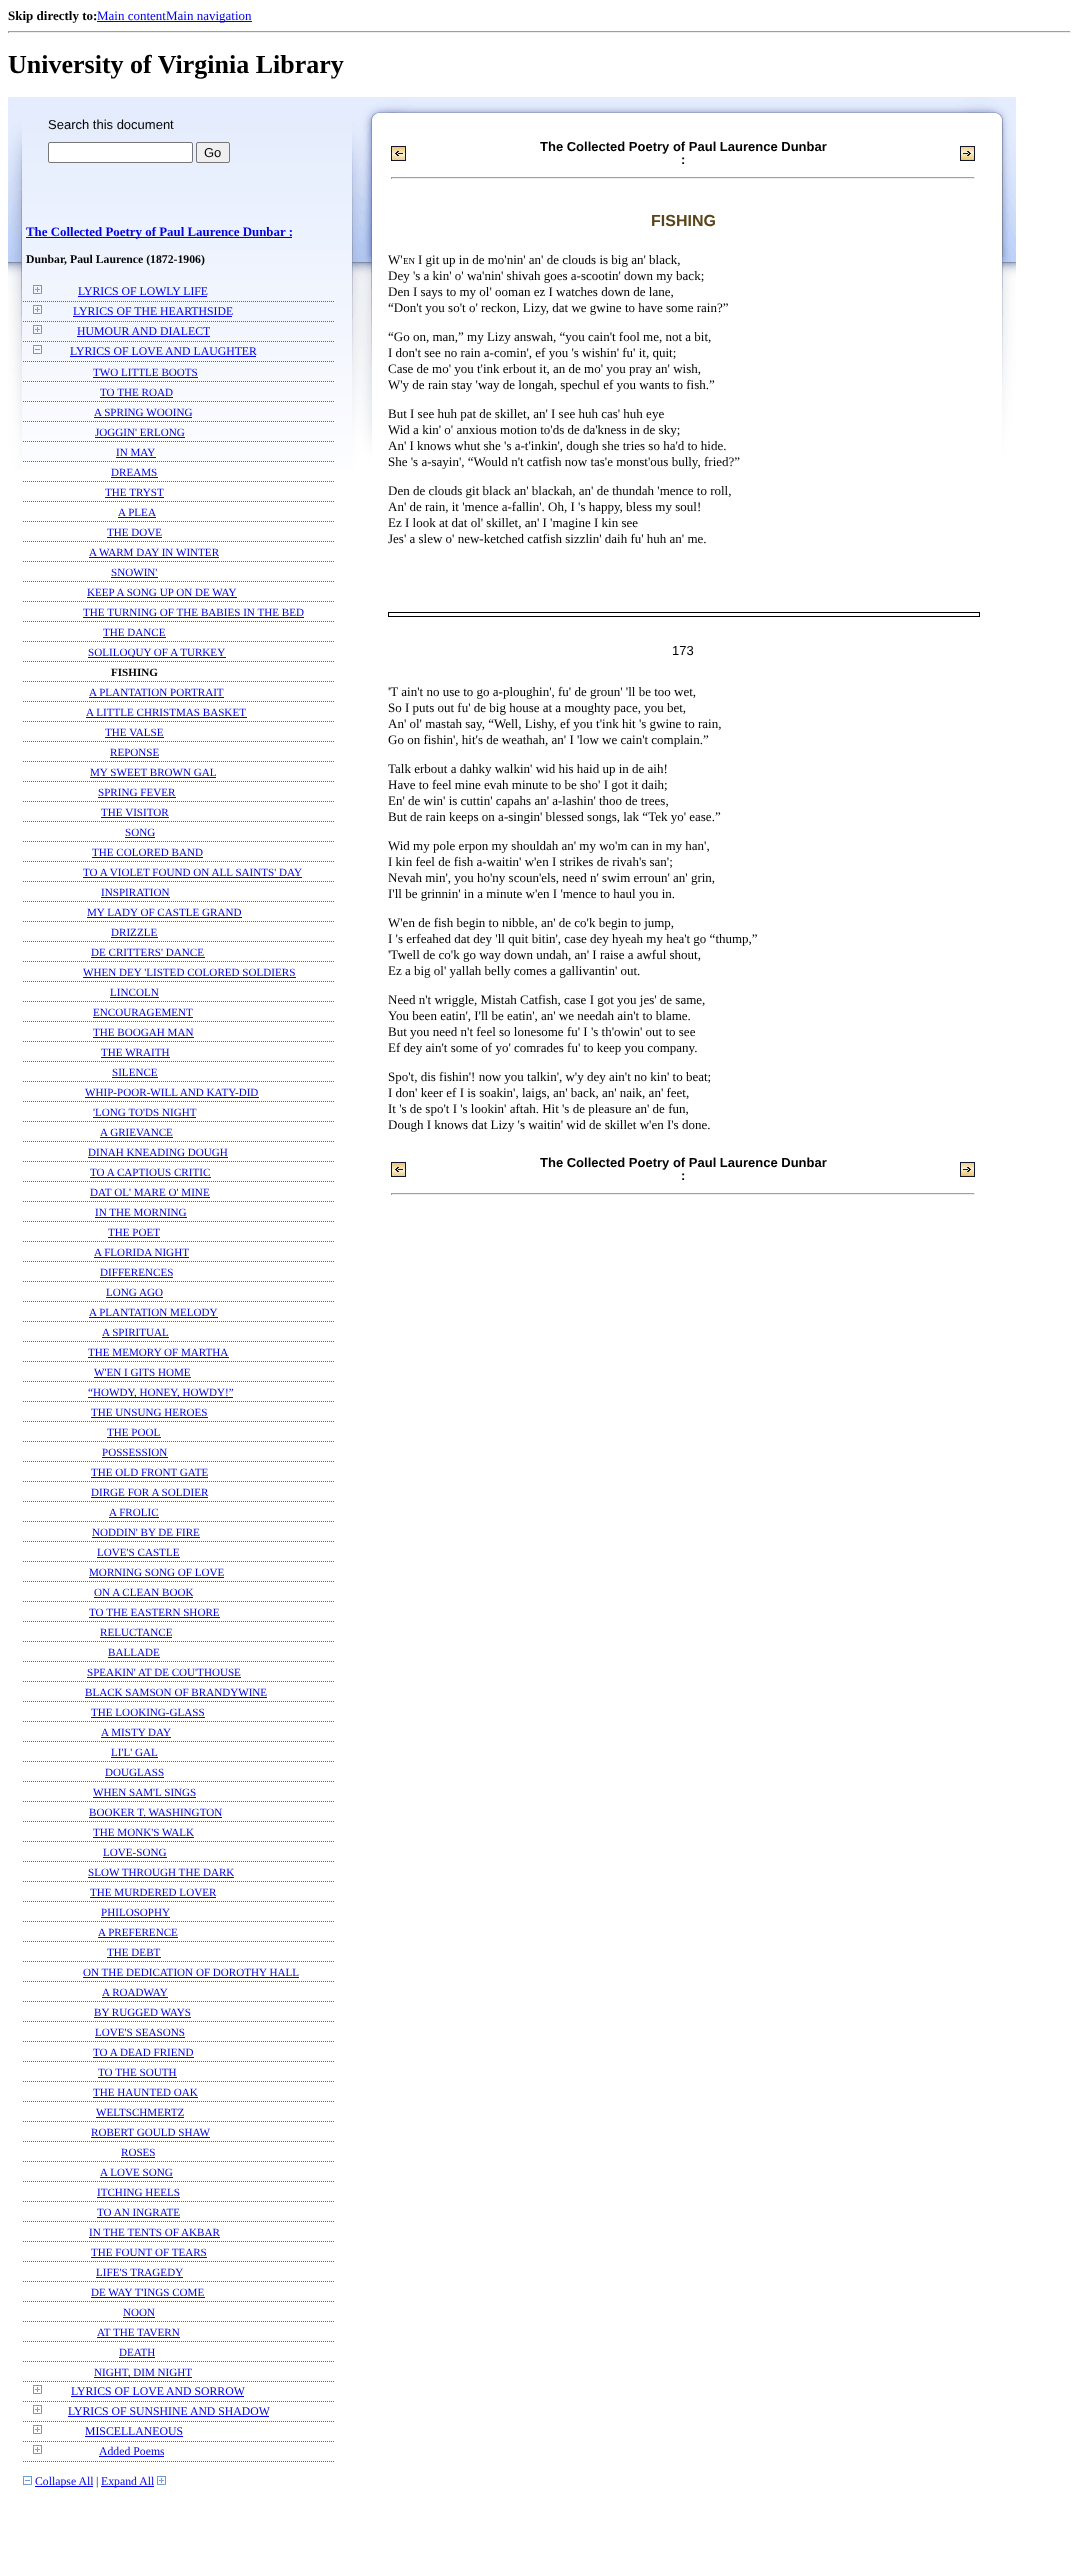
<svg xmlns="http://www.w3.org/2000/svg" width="1079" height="2559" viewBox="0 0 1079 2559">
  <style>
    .t1 { font: bold 13px Liberation Serif; fill: #000; }
    .t2 { font: 13px Liberation Serif; fill: #00e; }
    .t3 { font: bold 26px Liberation Serif; fill: #000; }
    .t4 { font: 13px Liberation Sans; fill: #000; }
    .t5 { font: bold 12.9px Liberation Serif; fill: #00e; }
    .t6 { font: bold 11.75px Liberation Serif; fill: #000; }
    .t7 { font: 11.75px Liberation Serif; fill: #00e; }
    .t8 { font: 11.1px Liberation Serif; fill: #00e; }
    .t9 { font: bold 11.1px Liberation Serif; fill: #000; }
    .t10 { font: 11.75px Liberation Serif; fill: #000; }
    .t11 { font: bold 13px Liberation Sans; fill: #000; }
    .t12 { font: bold 16px Liberation Sans; fill: #5b4418; }
    .t13 { font: 13px Liberation Serif; fill: #000; }
    .t14 { font: 9px Liberation Serif; fill: #000; }
  </style>
  <rect width="100%" height="100%" fill="#fff"/>
  <text x="8" y="20" class="t1">Skip directly to:</text>
  <rect x="97" y="21" width="155" height="1" fill="#00e"/>
  <text x="97" y="20" class="t2">Main contentMain navigation</text>
  <rect x="8" y="31" width="1063" height="1" fill="#9f9f9f"/>
  <rect x="1070" y="31" width="1" height="2" fill="#eee"/>
  <rect x="8" y="32" width="1063" height="1" fill="#eee"/>
  <rect x="8" y="31" width="1" height="2" fill="#9f9f9f"/>
  <text x="8" y="73" class="t3">University of Virginia Library</text>
  <image x="8" y="97" width="1008" height="372" href="images/1.png"/>
  <text x="48" y="129" class="t4">Search this document</text>
  <rect x="48.5" y="142.5" width="144" height="20" rx="1.5" fill="#fff" stroke="#767676"/>
  <rect x="196.5" y="142.5" width="33" height="20" rx="1.5" fill="#efefef" stroke="#767676"/>
  <text x="204" y="157" class="t4">Go</text>
  <rect x="26" y="237" width="266" height="1" fill="#00e"/>
  <text x="26" y="236" class="t5">The Collected Poetry of Paul Laurence Dunbar :</text>
  <text x="26" y="263" class="t6">Dunbar, Paul Laurence (1872-1906)</text>
  <path d="M23 301.5H334" fill="none" stroke="#3f6dad" stroke-dasharray="1 1"/>
  <image x="33" y="285" width="9" height="9" href="images/2.png"/>
  <text x="78" y="295" class="t7">LYRICS OF LOWLY LIFE</text>
  <rect x="78" y="296" width="129" height="1" fill="#00e"/>
  <path d="M23 321.5H334" fill="none" stroke="#3f6dad" stroke-dasharray="1 1"/>
  <image x="33" y="305" width="9" height="9" href="images/3.png"/>
  <text x="73" y="315" class="t7">LYRICS OF THE HEARTHSIDE</text>
  <rect x="73" y="316" width="159" height="1" fill="#00e"/>
  <path d="M23 341.5H334" fill="none" stroke="#3f6dad" stroke-dasharray="1 1"/>
  <image x="33" y="325" width="9" height="9" href="images/4.png"/>
  <text x="77" y="335" class="t7">HUMOUR AND DIALECT</text>
  <rect x="77" y="336" width="133" height="1" fill="#00e"/>
  <path d="M23 361.5H334" fill="none" stroke="#3f6dad" stroke-dasharray="1 1"/>
  <image x="33" y="345" width="9" height="9" href="images/5.png"/>
  <text x="70" y="355" class="t7">LYRICS OF LOVE AND LAUGHTER</text>
  <rect x="70" y="356" width="186" height="1" fill="#00e"/>
  <path d="M23 381.5H334" fill="none" stroke="#3f6dad" stroke-dasharray="1 1"/>
  <text x="93" y="376" class="t8">TWO LITTLE BOOTS</text>
  <rect x="93" y="377" width="105" height="1" fill="#00e"/>
  <path d="M23 401.5H334" fill="none" stroke="#3f6dad" stroke-dasharray="1 1"/>
  <text x="100" y="396" class="t8">TO THE ROAD</text>
  <rect x="100" y="397" width="73" height="1" fill="#00e"/>
  <path d="M23 421.5H334" fill="none" stroke="#3f6dad" stroke-dasharray="1 1"/>
  <text x="94" y="416" class="t8">A SPRING WOOING</text>
  <rect x="94" y="417" width="98" height="1" fill="#00e"/>
  <path d="M23 441.5H334" fill="none" stroke="#3f6dad" stroke-dasharray="1 1"/>
  <text x="95" y="436" class="t8">JOGGIN' ERLONG</text>
  <rect x="95" y="437" width="90" height="1" fill="#00e"/>
  <path d="M23 461.5H334" fill="none" stroke="#3f6dad" stroke-dasharray="1 1"/>
  <text x="116" y="456" class="t8">IN MAY</text>
  <rect x="116" y="457" width="40" height="1" fill="#00e"/>
  <path d="M23 481.5H334" fill="none" stroke="#3f6dad" stroke-dasharray="1 1"/>
  <text x="111" y="476" class="t8">DREAMS</text>
  <rect x="111" y="477" width="47" height="1" fill="#00e"/>
  <path d="M23 501.5H334" fill="none" stroke="#3f6dad" stroke-dasharray="1 1"/>
  <text x="105" y="496" class="t8">THE TRYST</text>
  <rect x="105" y="497" width="59" height="1" fill="#00e"/>
  <path d="M23 521.5H334" fill="none" stroke="#3f6dad" stroke-dasharray="1 1"/>
  <text x="118" y="516" class="t8">A PLEA</text>
  <rect x="118" y="517" width="38" height="1" fill="#00e"/>
  <path d="M23 541.5H334" fill="none" stroke="#3f6dad" stroke-dasharray="1 1"/>
  <text x="107" y="536" class="t8">THE DOVE</text>
  <rect x="107" y="537" width="55" height="1" fill="#00e"/>
  <path d="M23 561.5H334" fill="none" stroke="#3f6dad" stroke-dasharray="1 1"/>
  <text x="89" y="556" class="t8">A WARM DAY IN WINTER</text>
  <rect x="89" y="557" width="130" height="1" fill="#00e"/>
  <path d="M23 581.5H334" fill="none" stroke="#3f6dad" stroke-dasharray="1 1"/>
  <text x="111" y="576" class="t8">SNOWIN'</text>
  <rect x="111" y="577" width="47" height="1" fill="#00e"/>
  <path d="M23 601.5H334" fill="none" stroke="#3f6dad" stroke-dasharray="1 1"/>
  <text x="87" y="596" class="t8">KEEP A SONG UP ON DE WAY</text>
  <rect x="87" y="597" width="150" height="1" fill="#00e"/>
  <path d="M23 621.5H334" fill="none" stroke="#3f6dad" stroke-dasharray="1 1"/>
  <text x="83" y="616" class="t8">THE TURNING OF THE BABIES IN THE BED</text>
  <rect x="83" y="617" width="221" height="1" fill="#00e"/>
  <path d="M23 641.5H334" fill="none" stroke="#3f6dad" stroke-dasharray="1 1"/>
  <text x="103" y="636" class="t8">THE DANCE</text>
  <rect x="103" y="637" width="63" height="1" fill="#00e"/>
  <path d="M23 661.5H334" fill="none" stroke="#3f6dad" stroke-dasharray="1 1"/>
  <rect x="88" y="657" width="138" height="1" fill="#00e"/>
  <text x="88" y="656" class="t8">SOLILOQUY OF A TURKEY</text>
  <path d="M23 681.5H334" fill="none" stroke="#3f6dad" stroke-dasharray="1 1"/>
  <text x="111" y="676" class="t9">FISHING</text>
  <path d="M23 701.5H334" fill="none" stroke="#3f6dad" stroke-dasharray="1 1"/>
  <text x="89" y="696" class="t8">A PLANTATION PORTRAIT</text>
  <rect x="89" y="697" width="135" height="1" fill="#00e"/>
  <path d="M23 721.5H334" fill="none" stroke="#3f6dad" stroke-dasharray="1 1"/>
  <text x="86" y="716" class="t8">A LITTLE CHRISTMAS BASKET</text>
  <rect x="86" y="717" width="161" height="1" fill="#00e"/>
  <path d="M23 741.5H334" fill="none" stroke="#3f6dad" stroke-dasharray="1 1"/>
  <text x="105" y="736" class="t8">THE VALSE</text>
  <rect x="105" y="737" width="59" height="1" fill="#00e"/>
  <path d="M23 761.5H334" fill="none" stroke="#3f6dad" stroke-dasharray="1 1"/>
  <text x="110" y="756" class="t8">REPONSE</text>
  <rect x="110" y="757" width="49" height="1" fill="#00e"/>
  <path d="M23 781.5H334" fill="none" stroke="#3f6dad" stroke-dasharray="1 1"/>
  <text x="90" y="776" class="t8">MY SWEET BROWN GAL</text>
  <rect x="90" y="777" width="126" height="1" fill="#00e"/>
  <path d="M23 801.5H334" fill="none" stroke="#3f6dad" stroke-dasharray="1 1"/>
  <text x="98" y="796" class="t8">SPRING FEVER</text>
  <rect x="98" y="797" width="78" height="1" fill="#00e"/>
  <path d="M23 821.5H334" fill="none" stroke="#3f6dad" stroke-dasharray="1 1"/>
  <text x="101" y="816" class="t8">THE VISITOR</text>
  <rect x="101" y="817" width="68" height="1" fill="#00e"/>
  <path d="M23 841.5H334" fill="none" stroke="#3f6dad" stroke-dasharray="1 1"/>
  <text x="125" y="836" class="t8">SONG</text>
  <rect x="125" y="837" width="30" height="1" fill="#00e"/>
  <path d="M23 861.5H334" fill="none" stroke="#3f6dad" stroke-dasharray="1 1"/>
  <text x="92" y="856" class="t8">THE COLORED BAND</text>
  <rect x="92" y="857" width="111" height="1" fill="#00e"/>
  <path d="M23 881.5H334" fill="none" stroke="#3f6dad" stroke-dasharray="1 1"/>
  <text x="83" y="876" class="t8">TO A VIOLET FOUND ON ALL SAINTS' DAY</text>
  <rect x="83" y="877" width="219" height="1" fill="#00e"/>
  <path d="M23 901.5H334" fill="none" stroke="#3f6dad" stroke-dasharray="1 1"/>
  <text x="101" y="896" class="t8">INSPIRATION</text>
  <rect x="101" y="897" width="69" height="1" fill="#00e"/>
  <path d="M23 921.5H334" fill="none" stroke="#3f6dad" stroke-dasharray="1 1"/>
  <text x="87" y="916" class="t8">MY LADY OF CASTLE GRAND</text>
  <rect x="87" y="917" width="155" height="1" fill="#00e"/>
  <path d="M23 941.5H334" fill="none" stroke="#3f6dad" stroke-dasharray="1 1"/>
  <text x="111" y="936" class="t8">DRIZZLE</text>
  <rect x="111" y="937" width="47" height="1" fill="#00e"/>
  <path d="M23 961.5H334" fill="none" stroke="#3f6dad" stroke-dasharray="1 1"/>
  <text x="91" y="956" class="t8">DE CRITTERS' DANCE</text>
  <rect x="91" y="957" width="114" height="1" fill="#00e"/>
  <path d="M23 981.5H334" fill="none" stroke="#3f6dad" stroke-dasharray="1 1"/>
  <text x="83" y="976" class="t8">WHEN DEY 'LISTED COLORED SOLDIERS</text>
  <rect x="83" y="977" width="213" height="1" fill="#00e"/>
  <path d="M23 1001.5H334" fill="none" stroke="#3f6dad" stroke-dasharray="1 1"/>
  <text x="110" y="996" class="t8">LINCOLN</text>
  <rect x="110" y="997" width="49" height="1" fill="#00e"/>
  <path d="M23 1021.5H334" fill="none" stroke="#3f6dad" stroke-dasharray="1 1"/>
  <text x="93" y="1016" class="t8">ENCOURAGEMENT</text>
  <rect x="93" y="1017" width="100" height="1" fill="#00e"/>
  <path d="M23 1041.5H334" fill="none" stroke="#3f6dad" stroke-dasharray="1 1"/>
  <text x="93" y="1036" class="t8">THE BOOGAH MAN</text>
  <rect x="93" y="1037" width="101" height="1" fill="#00e"/>
  <path d="M23 1061.5H334" fill="none" stroke="#3f6dad" stroke-dasharray="1 1"/>
  <text x="101" y="1056" class="t8">THE WRAITH</text>
  <rect x="101" y="1057" width="69" height="1" fill="#00e"/>
  <path d="M23 1081.5H334" fill="none" stroke="#3f6dad" stroke-dasharray="1 1"/>
  <text x="112" y="1076" class="t8">SILENCE</text>
  <rect x="112" y="1077" width="46" height="1" fill="#00e"/>
  <path d="M23 1101.5H334" fill="none" stroke="#3f6dad" stroke-dasharray="1 1"/>
  <text x="85" y="1096" class="t8">WHIP-POOR-WILL AND KATY-DID</text>
  <rect x="85" y="1097" width="174" height="1" fill="#00e"/>
  <path d="M23 1121.5H334" fill="none" stroke="#3f6dad" stroke-dasharray="1 1"/>
  <text x="93" y="1116" class="t8">'LONG TO'DS NIGHT</text>
  <rect x="93" y="1117" width="103" height="1" fill="#00e"/>
  <path d="M23 1141.5H334" fill="none" stroke="#3f6dad" stroke-dasharray="1 1"/>
  <text x="100" y="1136" class="t8">A GRIEVANCE</text>
  <rect x="100" y="1137" width="73" height="1" fill="#00e"/>
  <path d="M23 1161.5H334" fill="none" stroke="#3f6dad" stroke-dasharray="1 1"/>
  <text x="88" y="1156" class="t8">DINAH KNEADING DOUGH</text>
  <rect x="88" y="1157" width="140" height="1" fill="#00e"/>
  <path d="M23 1181.5H334" fill="none" stroke="#3f6dad" stroke-dasharray="1 1"/>
  <text x="90" y="1176" class="t8">TO A CAPTIOUS CRITIC</text>
  <rect x="90" y="1177" width="121" height="1" fill="#00e"/>
  <path d="M23 1201.5H334" fill="none" stroke="#3f6dad" stroke-dasharray="1 1"/>
  <text x="90" y="1196" class="t8">DAT OL' MARE O' MINE</text>
  <rect x="90" y="1197" width="120" height="1" fill="#00e"/>
  <path d="M23 1221.5H334" fill="none" stroke="#3f6dad" stroke-dasharray="1 1"/>
  <text x="95" y="1216" class="t8">IN THE MORNING</text>
  <rect x="95" y="1217" width="92" height="1" fill="#00e"/>
  <path d="M23 1241.5H334" fill="none" stroke="#3f6dad" stroke-dasharray="1 1"/>
  <text x="108" y="1236" class="t8">THE POET</text>
  <rect x="108" y="1237" width="52" height="1" fill="#00e"/>
  <path d="M23 1261.5H334" fill="none" stroke="#3f6dad" stroke-dasharray="1 1"/>
  <text x="94" y="1256" class="t8">A FLORIDA NIGHT</text>
  <rect x="94" y="1257" width="95" height="1" fill="#00e"/>
  <path d="M23 1281.5H334" fill="none" stroke="#3f6dad" stroke-dasharray="1 1"/>
  <text x="100" y="1276" class="t8">DIFFERENCES</text>
  <rect x="100" y="1277" width="73" height="1" fill="#00e"/>
  <path d="M23 1301.5H334" fill="none" stroke="#3f6dad" stroke-dasharray="1 1"/>
  <text x="106" y="1296" class="t8">LONG AGO</text>
  <rect x="106" y="1297" width="57" height="1" fill="#00e"/>
  <path d="M23 1321.5H334" fill="none" stroke="#3f6dad" stroke-dasharray="1 1"/>
  <text x="89" y="1316" class="t8">A PLANTATION MELODY</text>
  <rect x="89" y="1317" width="129" height="1" fill="#00e"/>
  <path d="M23 1341.5H334" fill="none" stroke="#3f6dad" stroke-dasharray="1 1"/>
  <text x="102" y="1336" class="t8">A SPIRITUAL</text>
  <rect x="102" y="1337" width="67" height="1" fill="#00e"/>
  <path d="M23 1361.5H334" fill="none" stroke="#3f6dad" stroke-dasharray="1 1"/>
  <text x="88" y="1356" class="t8">THE MEMORY OF MARTHA</text>
  <rect x="88" y="1357" width="141" height="1" fill="#00e"/>
  <path d="M23 1381.5H334" fill="none" stroke="#3f6dad" stroke-dasharray="1 1"/>
  <text x="94" y="1376" class="t8">W'EN I GITS HOME</text>
  <rect x="94" y="1377" width="97" height="1" fill="#00e"/>
  <path d="M23 1401.5H334" fill="none" stroke="#3f6dad" stroke-dasharray="1 1"/>
  <rect x="88" y="1397" width="145" height="1" fill="#00e"/>
  <text x="88" y="1396" class="t8">“HOWDY, HONEY, HOWDY!”</text>
  <path d="M23 1421.5H334" fill="none" stroke="#3f6dad" stroke-dasharray="1 1"/>
  <text x="91" y="1416" class="t8">THE UNSUNG HEROES</text>
  <rect x="91" y="1417" width="117" height="1" fill="#00e"/>
  <path d="M23 1441.5H334" fill="none" stroke="#3f6dad" stroke-dasharray="1 1"/>
  <text x="107" y="1436" class="t8">THE POOL</text>
  <rect x="107" y="1437" width="54" height="1" fill="#00e"/>
  <path d="M23 1461.5H334" fill="none" stroke="#3f6dad" stroke-dasharray="1 1"/>
  <text x="102" y="1456" class="t8">POSSESSION</text>
  <rect x="102" y="1457" width="66" height="1" fill="#00e"/>
  <path d="M23 1481.5H334" fill="none" stroke="#3f6dad" stroke-dasharray="1 1"/>
  <text x="91" y="1476" class="t8">THE OLD FRONT GATE</text>
  <rect x="91" y="1477" width="117" height="1" fill="#00e"/>
  <path d="M23 1501.5H334" fill="none" stroke="#3f6dad" stroke-dasharray="1 1"/>
  <text x="91" y="1496" class="t8">DIRGE FOR A SOLDIER</text>
  <rect x="91" y="1497" width="117" height="1" fill="#00e"/>
  <path d="M23 1521.5H334" fill="none" stroke="#3f6dad" stroke-dasharray="1 1"/>
  <text x="109" y="1516" class="t8">A FROLIC</text>
  <rect x="109" y="1517" width="50" height="1" fill="#00e"/>
  <path d="M23 1541.5H334" fill="none" stroke="#3f6dad" stroke-dasharray="1 1"/>
  <text x="92" y="1536" class="t8">NODDIN' BY DE FIRE</text>
  <rect x="92" y="1537" width="108" height="1" fill="#00e"/>
  <path d="M23 1561.5H334" fill="none" stroke="#3f6dad" stroke-dasharray="1 1"/>
  <text x="97" y="1556" class="t8">LOVE'S CASTLE</text>
  <rect x="97" y="1557" width="83" height="1" fill="#00e"/>
  <path d="M23 1581.5H334" fill="none" stroke="#3f6dad" stroke-dasharray="1 1"/>
  <text x="89" y="1576" class="t8">MORNING SONG OF LOVE</text>
  <rect x="89" y="1577" width="135" height="1" fill="#00e"/>
  <path d="M23 1601.5H334" fill="none" stroke="#3f6dad" stroke-dasharray="1 1"/>
  <text x="94" y="1596" class="t8">ON A CLEAN BOOK</text>
  <rect x="94" y="1597" width="99" height="1" fill="#00e"/>
  <path d="M23 1621.5H334" fill="none" stroke="#3f6dad" stroke-dasharray="1 1"/>
  <text x="89" y="1616" class="t8">TO THE EASTERN SHORE</text>
  <rect x="89" y="1617" width="131" height="1" fill="#00e"/>
  <path d="M23 1641.5H334" fill="none" stroke="#3f6dad" stroke-dasharray="1 1"/>
  <text x="100" y="1636" class="t8">RELUCTANCE</text>
  <rect x="100" y="1637" width="72" height="1" fill="#00e"/>
  <path d="M23 1661.5H334" fill="none" stroke="#3f6dad" stroke-dasharray="1 1"/>
  <text x="108" y="1656" class="t8">BALLADE</text>
  <rect x="108" y="1657" width="52" height="1" fill="#00e"/>
  <path d="M23 1681.5H334" fill="none" stroke="#3f6dad" stroke-dasharray="1 1"/>
  <text x="87" y="1676" class="t8">SPEAKIN' AT DE COU'THOUSE</text>
  <rect x="87" y="1677" width="154" height="1" fill="#00e"/>
  <path d="M23 1701.5H334" fill="none" stroke="#3f6dad" stroke-dasharray="1 1"/>
  <text x="85" y="1696" class="t8">BLACK SAMSON OF BRANDYWINE</text>
  <rect x="85" y="1697" width="182" height="1" fill="#00e"/>
  <path d="M23 1721.5H334" fill="none" stroke="#3f6dad" stroke-dasharray="1 1"/>
  <text x="91" y="1716" class="t8">THE LOOKING-GLASS</text>
  <rect x="91" y="1717" width="114" height="1" fill="#00e"/>
  <path d="M23 1741.5H334" fill="none" stroke="#3f6dad" stroke-dasharray="1 1"/>
  <text x="101" y="1736" class="t8">A MISTY DAY</text>
  <rect x="101" y="1737" width="70" height="1" fill="#00e"/>
  <path d="M23 1761.5H334" fill="none" stroke="#3f6dad" stroke-dasharray="1 1"/>
  <text x="111" y="1756" class="t8">LI'L' GAL</text>
  <rect x="111" y="1757" width="47" height="1" fill="#00e"/>
  <path d="M23 1781.5H334" fill="none" stroke="#3f6dad" stroke-dasharray="1 1"/>
  <text x="105" y="1776" class="t8">DOUGLASS</text>
  <rect x="105" y="1777" width="59" height="1" fill="#00e"/>
  <path d="M23 1801.5H334" fill="none" stroke="#3f6dad" stroke-dasharray="1 1"/>
  <text x="93" y="1796" class="t8">WHEN SAM'L SINGS</text>
  <rect x="93" y="1797" width="103" height="1" fill="#00e"/>
  <path d="M23 1821.5H334" fill="none" stroke="#3f6dad" stroke-dasharray="1 1"/>
  <text x="89" y="1816" class="t8">BOOKER T. WASHINGTON</text>
  <rect x="89" y="1817" width="133" height="1" fill="#00e"/>
  <path d="M23 1841.5H334" fill="none" stroke="#3f6dad" stroke-dasharray="1 1"/>
  <text x="93" y="1836" class="t8">THE MONK'S WALK</text>
  <rect x="93" y="1837" width="101" height="1" fill="#00e"/>
  <path d="M23 1861.5H334" fill="none" stroke="#3f6dad" stroke-dasharray="1 1"/>
  <text x="103" y="1856" class="t8">LOVE-SONG</text>
  <rect x="103" y="1857" width="64" height="1" fill="#00e"/>
  <path d="M23 1881.5H334" fill="none" stroke="#3f6dad" stroke-dasharray="1 1"/>
  <text x="88" y="1876" class="t8">SLOW THROUGH THE DARK</text>
  <rect x="88" y="1877" width="146" height="1" fill="#00e"/>
  <path d="M23 1901.5H334" fill="none" stroke="#3f6dad" stroke-dasharray="1 1"/>
  <text x="90" y="1896" class="t8">THE MURDERED LOVER</text>
  <rect x="90" y="1897" width="126" height="1" fill="#00e"/>
  <path d="M23 1921.5H334" fill="none" stroke="#3f6dad" stroke-dasharray="1 1"/>
  <text x="101" y="1916" class="t8">PHILOSOPHY</text>
  <rect x="101" y="1917" width="69" height="1" fill="#00e"/>
  <path d="M23 1941.5H334" fill="none" stroke="#3f6dad" stroke-dasharray="1 1"/>
  <text x="98" y="1936" class="t8">A PREFERENCE</text>
  <rect x="98" y="1937" width="80" height="1" fill="#00e"/>
  <path d="M23 1961.5H334" fill="none" stroke="#3f6dad" stroke-dasharray="1 1"/>
  <text x="107" y="1956" class="t8">THE DEBT</text>
  <rect x="107" y="1957" width="54" height="1" fill="#00e"/>
  <path d="M23 1981.5H334" fill="none" stroke="#3f6dad" stroke-dasharray="1 1"/>
  <text x="83" y="1976" class="t8">ON THE DEDICATION OF DOROTHY HALL</text>
  <rect x="83" y="1977" width="216" height="1" fill="#00e"/>
  <path d="M23 2001.5H334" fill="none" stroke="#3f6dad" stroke-dasharray="1 1"/>
  <text x="102" y="1996" class="t8">A ROADWAY</text>
  <rect x="102" y="1997" width="66" height="1" fill="#00e"/>
  <path d="M23 2021.5H334" fill="none" stroke="#3f6dad" stroke-dasharray="1 1"/>
  <text x="94" y="2016" class="t8">BY RUGGED WAYS</text>
  <rect x="94" y="2017" width="97" height="1" fill="#00e"/>
  <path d="M23 2041.5H334" fill="none" stroke="#3f6dad" stroke-dasharray="1 1"/>
  <text x="95" y="2036" class="t8">LOVE'S SEASONS</text>
  <rect x="95" y="2037" width="90" height="1" fill="#00e"/>
  <path d="M23 2061.5H334" fill="none" stroke="#3f6dad" stroke-dasharray="1 1"/>
  <text x="93" y="2056" class="t8">TO A DEAD FRIEND</text>
  <rect x="93" y="2057" width="101" height="1" fill="#00e"/>
  <path d="M23 2081.5H334" fill="none" stroke="#3f6dad" stroke-dasharray="1 1"/>
  <text x="98" y="2076" class="t8">TO THE SOUTH</text>
  <rect x="98" y="2077" width="79" height="1" fill="#00e"/>
  <path d="M23 2101.5H334" fill="none" stroke="#3f6dad" stroke-dasharray="1 1"/>
  <text x="93" y="2096" class="t8">THE HAUNTED OAK</text>
  <rect x="93" y="2097" width="105" height="1" fill="#00e"/>
  <path d="M23 2121.5H334" fill="none" stroke="#3f6dad" stroke-dasharray="1 1"/>
  <text x="96" y="2116" class="t8">WELTSCHMERTZ</text>
  <rect x="96" y="2117" width="88" height="1" fill="#00e"/>
  <path d="M23 2141.5H334" fill="none" stroke="#3f6dad" stroke-dasharray="1 1"/>
  <text x="91" y="2136" class="t8">ROBERT GOULD SHAW</text>
  <rect x="91" y="2137" width="119" height="1" fill="#00e"/>
  <path d="M23 2161.5H334" fill="none" stroke="#3f6dad" stroke-dasharray="1 1"/>
  <text x="121" y="2156" class="t8">ROSES</text>
  <rect x="121" y="2157" width="34" height="1" fill="#00e"/>
  <path d="M23 2181.5H334" fill="none" stroke="#3f6dad" stroke-dasharray="1 1"/>
  <text x="100" y="2176" class="t8">A LOVE SONG</text>
  <rect x="100" y="2177" width="73" height="1" fill="#00e"/>
  <path d="M23 2201.5H334" fill="none" stroke="#3f6dad" stroke-dasharray="1 1"/>
  <text x="97" y="2196" class="t8">ITCHING HEELS</text>
  <rect x="97" y="2197" width="83" height="1" fill="#00e"/>
  <path d="M23 2221.5H334" fill="none" stroke="#3f6dad" stroke-dasharray="1 1"/>
  <text x="97" y="2216" class="t8">TO AN INGRATE</text>
  <rect x="97" y="2217" width="83" height="1" fill="#00e"/>
  <path d="M23 2241.5H334" fill="none" stroke="#3f6dad" stroke-dasharray="1 1"/>
  <text x="89" y="2236" class="t8">IN THE TENTS OF AKBAR</text>
  <rect x="89" y="2237" width="131" height="1" fill="#00e"/>
  <path d="M23 2261.5H334" fill="none" stroke="#3f6dad" stroke-dasharray="1 1"/>
  <text x="91" y="2256" class="t8">THE FOUNT OF TEARS</text>
  <rect x="91" y="2257" width="116" height="1" fill="#00e"/>
  <path d="M23 2281.5H334" fill="none" stroke="#3f6dad" stroke-dasharray="1 1"/>
  <text x="96" y="2276" class="t8">LIFE'S TRAGEDY</text>
  <rect x="96" y="2277" width="87" height="1" fill="#00e"/>
  <path d="M23 2301.5H334" fill="none" stroke="#3f6dad" stroke-dasharray="1 1"/>
  <text x="91" y="2296" class="t8">DE WAY T'INGS COME</text>
  <rect x="91" y="2297" width="114" height="1" fill="#00e"/>
  <path d="M23 2321.5H334" fill="none" stroke="#3f6dad" stroke-dasharray="1 1"/>
  <text x="123" y="2316" class="t8">NOON</text>
  <rect x="123" y="2317" width="32" height="1" fill="#00e"/>
  <path d="M23 2341.5H334" fill="none" stroke="#3f6dad" stroke-dasharray="1 1"/>
  <text x="97" y="2336" class="t8">AT THE TAVERN</text>
  <rect x="97" y="2337" width="83" height="1" fill="#00e"/>
  <path d="M23 2361.5H334" fill="none" stroke="#3f6dad" stroke-dasharray="1 1"/>
  <text x="119" y="2356" class="t8">DEATH</text>
  <rect x="119" y="2357" width="36" height="1" fill="#00e"/>
  <path d="M23 2381.5H334" fill="none" stroke="#3f6dad" stroke-dasharray="1 1"/>
  <rect x="94" y="2377" width="98" height="1" fill="#00e"/>
  <text x="94" y="2376" class="t8">NIGHT, DIM NIGHT</text>
  <path d="M23 2401.5H334" fill="none" stroke="#3f6dad" stroke-dasharray="1 1"/>
  <image x="33" y="2385" width="9" height="9" href="images/6.png"/>
  <text x="71" y="2395" class="t7">LYRICS OF LOVE AND SORROW</text>
  <rect x="71" y="2396" width="173" height="1" fill="#00e"/>
  <path d="M23 2421.5H334" fill="none" stroke="#3f6dad" stroke-dasharray="1 1"/>
  <image x="33" y="2405" width="9" height="9" href="images/6.png"/>
  <text x="68" y="2415" class="t7">LYRICS OF SUNSHINE AND SHADOW</text>
  <rect x="68" y="2416" width="201" height="1" fill="#00e"/>
  <path d="M23 2441.5H334" fill="none" stroke="#3f6dad" stroke-dasharray="1 1"/>
  <image x="33" y="2425" width="9" height="9" href="images/6.png"/>
  <text x="85" y="2435" class="t7">MISCELLANEOUS</text>
  <rect x="85" y="2436" width="98" height="1" fill="#00e"/>
  <path d="M23 2461.5H334" fill="none" stroke="#3f6dad" stroke-dasharray="1 1"/>
  <image x="33" y="2445" width="9" height="9" href="images/6.png"/>
  <text x="99" y="2455" class="t7">Added Poems</text>
  <rect x="99" y="2456" width="65" height="1" fill="#00e"/>
  <image x="23" y="2476" width="9" height="9" href="images/7.png"/>
  <rect x="35" y="2486" width="58" height="1" fill="#00e"/>
  <text x="35" y="2485" class="t7">Collapse All</text>
  <text x="96" y="2485" class="t10">|</text>
  <rect x="101" y="2486" width="53" height="1" fill="#00e"/>
  <text x="101" y="2485" class="t7">Expand All</text>
  <image x="157" y="2476" width="9" height="9" href="images/6.png"/>
  <image x="391" y="146" width="15" height="15" href="images/8.png"/>
  <text x="540" y="151" class="t11">The Collected Poetry of Paul Laurence Dunbar</text>
  <text x="681" y="164" class="t11">:</text>
  <image x="960" y="146" width="15" height="15" href="images/9.png"/>
  <rect x="391" y="177" width="584" height="1" fill="#9f9f9f"/>
  <rect x="974" y="177" width="1" height="2" fill="#eee"/>
  <rect x="391" y="178" width="584" height="1" fill="#eee"/>
  <rect x="391" y="177" width="1" height="2" fill="#9f9f9f"/>
  <text x="651" y="226" class="t12">FISHING</text>
  <text x="388" y="264" class="t13">W'</text>
  <text x="403" y="264" class="t14">EN</text>
  <text x="418" y="264" class="t13">I git up in de mo'nin' an' de clouds is big an' black,</text>
  <text x="388" y="280" class="t13">Dey 's a kin' o' wa'nin' shivah goes a-scootin' down my back;</text>
  <text x="388" y="296" class="t13">Den I says to my ol' ooman ez I watches down de lane,</text>
  <text x="388" y="312" class="t13">“Don't you so't o' reckon, Lizy, dat we gwine to have some rain?”</text>
  <text x="388" y="341" class="t13">“Go on, man,” my Lizy answah, “you cain't fool me, not a bit,</text>
  <text x="388" y="357" class="t13">I don't see no rain a-comin', ef you 's wishin' fu' it, quit;</text>
  <text x="388" y="373" class="t13">Case de mo' you t'ink erbout it, an de mo' you pray an' wish,</text>
  <text x="388" y="389" class="t13">W'y de rain stay 'way de longah, spechul ef you wants to fish.”</text>
  <text x="388" y="418" class="t13">But I see huh pat de skillet, an' I see huh cas' huh eye</text>
  <text x="388" y="434" class="t13">Wid a kin' o' anxious motion to'ds de da'kness in de sky;</text>
  <text x="388" y="450" class="t13">An' I knows whut she 's a-t'inkin', dough she tries so ha'd to hide.</text>
  <text x="388" y="466" class="t13">She 's a-sayin', “Would n't catfish now tas'e monst'ous bully, fried?”</text>
  <text x="388" y="495" class="t13">Den de clouds git black an' blackah, an' de thundah 'mence to roll,</text>
  <text x="388" y="511" class="t13">An' de rain, it 'mence a-fallin'. Oh, I 's happy, bless my soul!</text>
  <text x="388" y="527" class="t13">Ez I look at dat ol' skillet, an' I 'magine I kin see</text>
  <text x="388" y="543" class="t13">Jes' a slew o' new-ketched catfish sizzlin' daih fu' huh an' me.</text>
  <rect x="388.5" y="612.5" width="591" height="4" fill="none" stroke="#000"/>
  <text x="672" y="655" class="t4">173</text>
  <text x="388" y="696" class="t13">'T ain't no use to go a-ploughin', fu' de groun' 'll be too wet,</text>
  <text x="388" y="712" class="t13">So I puts out fu' de big house at a moughty pace, you bet,</text>
  <text x="388" y="728" class="t13">An' ol' mastah say, “Well, Lishy, ef you t'ink hit 's gwine to rain,</text>
  <text x="388" y="744" class="t13">Go on fishin', hit's de weathah, an' I 'low we cain't complain.”</text>
  <text x="388" y="773" class="t13">Talk erbout a dahky walkin' wid his haid up in de aih!</text>
  <text x="388" y="789" class="t13">Have to feel mine evah minute to be sho' I got it daih;</text>
  <text x="388" y="805" class="t13">En' de win' is cuttin' capahs an' a-lashin' thoo de trees,</text>
  <text x="388" y="821" class="t13">But de rain keeps on a-singin' blessed songs, lak “Tek yo' ease.”</text>
  <text x="388" y="850" class="t13">Wid my pole erpon my shouldah an' my wo'm can in my han',</text>
  <text x="388" y="866" class="t13">I kin feel de fish a-waitin' w'en I strikes de rivah's san';</text>
  <text x="388" y="882" class="t13">Nevah min', you ho'ny scoun'els, need n' swim erroun' an' grin,</text>
  <text x="388" y="898" class="t13">I'll be grinnin' in a minute w'en I 'mence to haul you in.</text>
  <text x="388" y="927" class="t13">W'en de fish begin to nibble, an' de co'k begin to jump,</text>
  <text x="388" y="943" class="t13">I 's erfeahed dat dey 'll quit bitin', case dey hyeah my hea't go “thump,”</text>
  <text x="388" y="959" class="t13">'Twell de co'k go way down undah, an' I raise a awful shout,</text>
  <text x="388" y="975" class="t13">Ez a big ol' yallah belly comes a gallivantin' out.</text>
  <text x="388" y="1004" class="t13">Need n't wriggle, Mistah Catfish, case I got you jes' de same,</text>
  <text x="388" y="1020" class="t13">You been eatin', I'll be eatin', an' we needah ain't to blame.</text>
  <text x="388" y="1036" class="t13">But you need n't feel so lonesome fu' I 's th'owin' out to see</text>
  <text x="388" y="1052" class="t13">Ef dey ain't some of yo' comrades fu' to keep you company.</text>
  <text x="388" y="1081" class="t13">Spo't, dis fishin'! now you talkin', w'y dey ain't no kin' to beat;</text>
  <text x="388" y="1097" class="t13">I don' keer ef I is soakin', laigs, an' back, an' naik, an' feet,</text>
  <text x="388" y="1113" class="t13">It 's de spo't I 's lookin' aftah. Hit 's de pleasure an' de fun,</text>
  <text x="388" y="1129" class="t13">Dough I knows dat Lizy 's waitin' wid de skillet w'en I's done.</text>
  <image x="391" y="1162" width="15" height="15" href="images/8.png"/>
  <text x="540" y="1167" class="t11">The Collected Poetry of Paul Laurence Dunbar</text>
  <text x="681" y="1180" class="t11">:</text>
  <image x="960" y="1162" width="15" height="15" href="images/9.png"/>
  <rect x="391" y="1193" width="584" height="1" fill="#9f9f9f"/>
  <rect x="974" y="1193" width="1" height="2" fill="#eee"/>
  <rect x="391" y="1194" width="584" height="1" fill="#eee"/>
  <rect x="391" y="1193" width="1" height="2" fill="#9f9f9f"/>
</svg>
